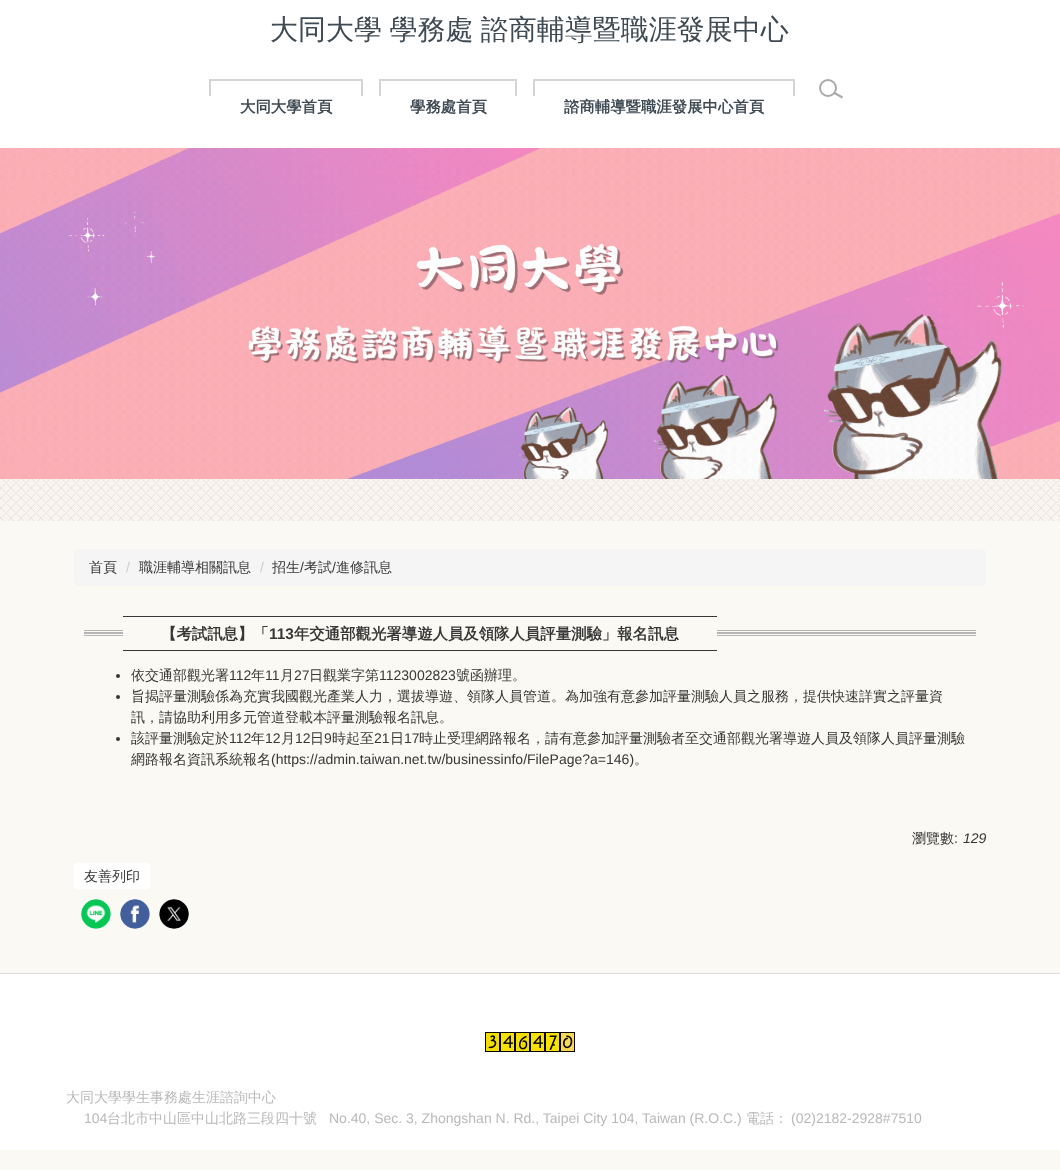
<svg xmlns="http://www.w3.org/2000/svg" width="1060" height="1170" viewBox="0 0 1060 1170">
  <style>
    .t1 { font: 500 28px WenQuanYi Zen Hei; fill: #3f4a53; }
    .t2 { font: bold 15.4px WenQuanYi Zen Hei; fill: #3f4a53; }
    .t3 { font: 500 14px WenQuanYi Zen Hei; fill: #373737; }
    .t4 { font: 14px Liberation Sans; fill: #ccc; }
    .t5 { font: 14px Liberation Sans; fill: #373737; }
    .t6 { font: bold 15.4px WenQuanYi Zen Hei; fill: #373737; }
    .t7 { font: bold 15.4px Liberation Sans; fill: #373737; }
    .t8 { font: italic 14px Liberation Sans; fill: #373737; }
    .t9 { font: 500 14px WenQuanYi Zen Hei; fill: #b9b9b9; }
    .t10 { font: 14px Liberation Sans; fill: #b9b9b9; }
  </style>
  <rect width="100%" height="100%" fill="#faf9f3"/>
  <rect x="0" y="0" width="1060" height="148" fill="#fff"/>
  <text x="270" y="39" word-spacing="-1" class="t1">大同大學 學務處 諮商輔導暨職涯發展中心</text>
  <circle cx="828" cy="88" r="8" fill="none" stroke="#aaa" stroke-width="2"/>
  <path d="M835 92L843 96.5L842 98.5L834 94Z" fill="#aaa"/>
  <rect x="209" y="79" width="154" height="2" fill="#d5d5d5"/>
  <rect x="209" y="81" width="2" height="15" fill="#d5d5d5"/>
  <rect x="361" y="81" width="2" height="15" fill="#d5d5d5"/>
  <text x="240" y="112" class="t2">大同大學首頁</text>
  <rect x="379" y="79" width="138" height="2" fill="#d5d5d5"/>
  <rect x="379" y="81" width="2" height="15" fill="#d5d5d5"/>
  <rect x="515" y="81" width="2" height="15" fill="#d5d5d5"/>
  <text x="410" y="112" class="t2">學務處首頁</text>
  <rect x="533" y="79" width="262" height="2" fill="#d5d5d5"/>
  <rect x="533" y="81" width="2" height="15" fill="#d5d5d5"/>
  <rect x="793" y="81" width="2" height="15" fill="#d5d5d5"/>
  <text x="564" y="112" class="t2">諮商輔導暨職涯發展中心首頁</text>
  <image x="0" y="148" width="1060" height="331" href="images/1.png"/>
  <image x="0" y="479" width="1060" height="42" href="images/2.png"/>
  <rect x="74" y="549" width="912" height="37" rx="4" fill="#f5f5f5"/>
  <text x="89" y="572" class="t3">首頁</text>
  <text x="126" y="572" class="t4">/</text>
  <text x="139" y="572" class="t3">職涯輔導相關訊息</text>
  <text x="260" y="572" class="t4">/</text>
  <text x="272" y="572" class="t3">招生</text>
  <text x="300" y="572" class="t5">/</text>
  <text x="304" y="572" class="t3">考試</text>
  <text x="332" y="572" class="t5">/</text>
  <text x="336" y="572" class="t3">進修訊息</text>
  <image x="84" y="630" width="892" height="6" href="images/3.png"/>
  <rect x="123" y="630" width="594" height="6" fill="#faf9f3"/>
  <rect x="123" y="616" width="594" height="1" fill="#373737"/>
  <rect x="123" y="650" width="594" height="1" fill="#373737"/>
  <text x="161" y="639" class="t6">【考試訊息】「</text>
  <text x="269" y="639" class="t7">113</text>
  <text x="294" y="639" class="t6">年交通部觀光署導遊人員及領隊人員評量測驗」報名訊息</text>
  <circle cx="118" cy="676" r="2" fill="#373737"/>
  <text x="131" y="680" class="t3">依交通部觀光署</text>
  <text x="229" y="680" class="t5">112</text>
  <text x="251" y="680" class="t3">年</text>
  <text x="265" y="680" class="t5">11</text>
  <text x="280" y="680" class="t3">月</text>
  <text x="294" y="680" class="t5">27</text>
  <text x="309" y="680" class="t3">日觀業字第</text>
  <text x="379" y="680" class="t5">1123002823</text>
  <text x="456" y="680" class="t3">號函辦理。</text>
  <circle cx="118" cy="697" r="2" fill="#373737"/>
  <text x="131" y="701" class="t3">旨揭評量測驗係為充實我國觀光產業人力，選拔導遊、領隊人員管道。為加強有意參加評量測驗人員之服務，提供快速詳實之評量資</text>
  <text x="131" y="722" class="t3">訊，請協助利用多元管道登載本評量測驗報名訊息。</text>
  <circle cx="118" cy="739" r="2" fill="#373737"/>
  <text x="131" y="743" class="t3">該評量測驗定於</text>
  <text x="229" y="743" class="t5">112</text>
  <text x="251" y="743" class="t3">年</text>
  <text x="265" y="743" class="t5">12</text>
  <text x="281" y="743" class="t3">月</text>
  <text x="295" y="743" class="t5">12</text>
  <text x="310" y="743" class="t3">日</text>
  <text x="324" y="743" class="t5">9</text>
  <text x="332" y="743" class="t3">時起至</text>
  <text x="374" y="743" class="t5">21</text>
  <text x="390" y="743" class="t3">日</text>
  <text x="404" y="743" class="t5">17</text>
  <text x="419" y="743" class="t3">時止受理網路報名，請有意參加評量測驗者至交通部觀光署導遊人員及領隊人員評量測驗</text>
  <text x="131" y="764" class="t3">網路報名資訊系統報名</text>
  <text x="271" y="764" class="t5">(https://admin.taiwan.net.tw/businessinfo/FilePage?a=146)</text>
  <text x="634" y="764" class="t3">。</text>
  <text x="912" y="843" class="t3">瀏覽數</text>
  <text x="954" y="843" class="t5">:</text>
  <text x="963" y="843" class="t8">129</text>
  <rect x="74" y="863" width="76" height="26" rx="4" fill="#fff"/>
  <text x="84" y="881" class="t3">友善列印</text>
  <circle cx="96" cy="914" r="15" fill="#fff"/>
  <image x="81" y="899" width="30" height="30" href="images/4.png"/>
  <circle cx="135" cy="914" r="15" fill="#fff"/>
  <image x="120" y="899" width="30" height="30" href="images/5.png"/>
  <circle cx="174" cy="914" r="15" fill="#fff"/>
  <image x="159" y="899" width="30" height="30" href="images/6.png"/>
  <rect x="0" y="974" width="1060" height="176" fill="#fff"/>
  <rect x="0" y="973" width="1060" height="1" fill="#dbdbdb"/>
  <image x="485" y="1032" width="15" height="20" href="images/7.png"/>
  <image x="500" y="1032" width="15" height="20" href="images/8.png"/>
  <image x="515" y="1032" width="15" height="20" href="images/9.png"/>
  <image x="530" y="1032" width="15" height="20" href="images/8.png"/>
  <image x="545" y="1032" width="15" height="20" href="images/10.png"/>
  <image x="560" y="1032" width="15" height="20" href="images/11.png"/>
  <text x="66" y="1102" class="t9">大同大學學生事務處生涯諮詢中心</text>
  <text x="84" y="1123" class="t10">104</text>
  <text x="107" y="1123" class="t9">台北市中山區中山北路三段四十號</text>
  <text x="329" y="1123" class="t10">No.40, Sec. 3, Zhongshan N. Rd., Taipei City 104, Taiwan (R.O.C.)</text>
  <text x="746" y="1123" class="t9">電話：</text>
  <text x="791" y="1123" class="t10">(02)2182-2928#7510</text>
</svg>
